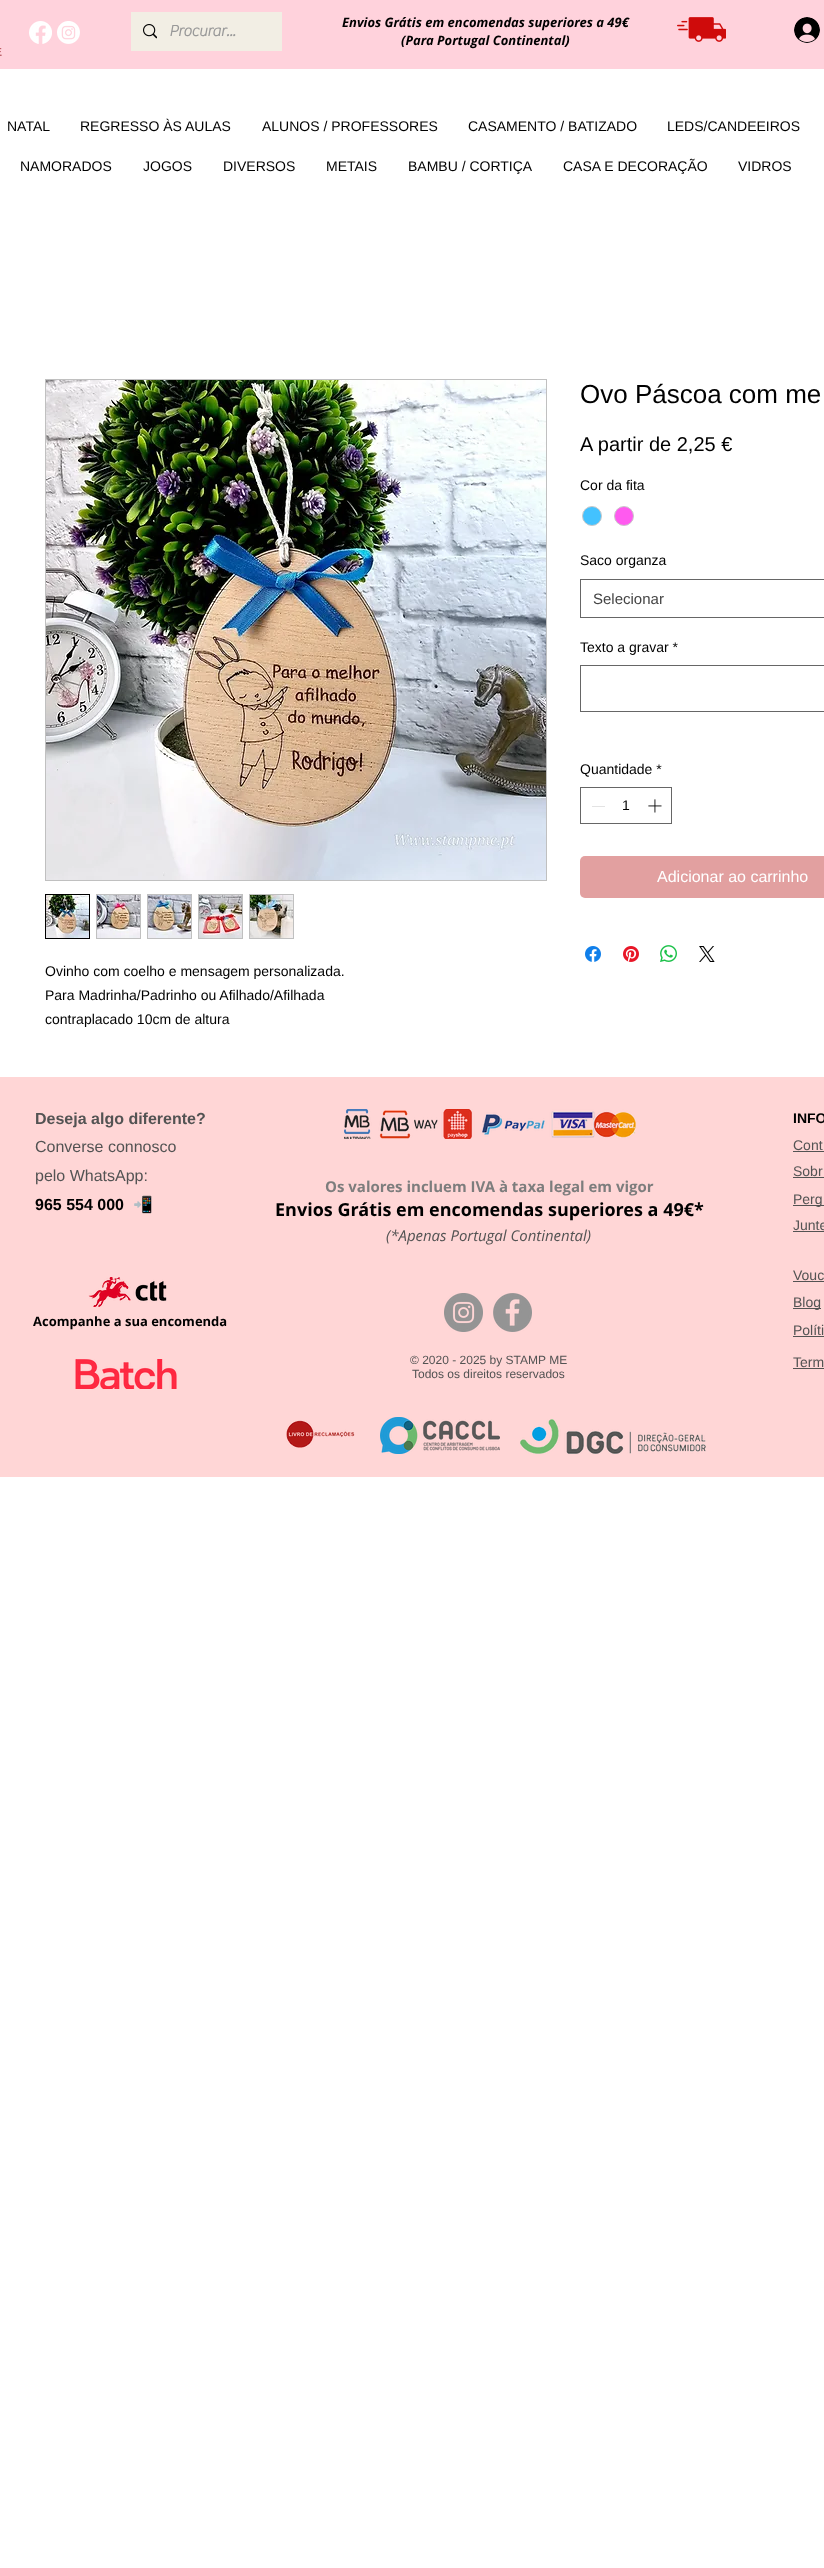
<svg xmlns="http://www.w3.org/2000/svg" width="824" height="2568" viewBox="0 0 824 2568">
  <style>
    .t1 { font: bold 16px 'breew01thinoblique'; fill: #999; }
    .t2 { font: italic bold 13px Open Sans; fill: #000; }
    .t3 { font: 14px Liberation Sans; fill: #000; }
    .t4 { font: 26px Liberation Sans; fill: #000; }
    .t5 { font: 20px Liberation Sans; fill: #000; }
    .t6 { font: 15px Liberation Sans; fill: #444; }
    .t7 { font: 16px Liberation Sans; fill: #fff; }
    .t8 { font: bold 16px Liberation Sans; fill: #535353; }
    .t9 { font: 16px Liberation Sans; fill: #535353; }
    .t10 { font: bold 16px Liberation Sans; fill: #000; }
    .t11 { font: 16px Noto Color Emoji; fill: #535353; }
    .t12 { font: bold 14px Liberation Sans; fill: #000; }
    .t13 { font: 14px Liberation Sans; fill: #535353; }
    .t14 { font: bold 15px Open Sans; fill: #7d7d7d; }
    .t15 { font: bold 18px Open Sans; fill: #000; }
    .t16 { font: italic 15px Open Sans; fill: #535353; }
    .t17 { font: bold 13px Open Sans; fill: #000; }
    .t18 { font: 12px Liberation Sans; fill: #535353; }
  </style>
  <rect width="100%" height="100%" fill="#fff"/>
  <rect x="0" y="0" width="824" height="69" fill="#ffd2dc"/>
  <image x="29" y="21" width="23" height="23" href="images/1.png"/>
  <image x="57" y="21" width="23" height="23" href="images/2.png"/>
  <rect x="131" y="12" width="151" height="39" fill="#f2eee4"/>
  <image x="143" y="24" width="14" height="15" href="images/3.png"/>
  <text x="169" y="36" class="t1">Procurar...</text>
  <text x="342" y="27" class="t2">Envios Grátis em encomendas superiores a 49€</text>
  <text x="401" y="45" class="t2">(Para Portugal Continental)</text>
  <image x="677" y="17" width="49" height="25" href="images/4.png"/>
  <image x="794" y="17" width="26" height="26" href="images/5.png"/>
  <image x="0" y="48" width="2" height="8" href="images/6.png"/>
  <text x="7" y="131" class="t3">NATAL</text>
  <text x="80" y="131" class="t3">REGRESSO ÀS AULAS</text>
  <text x="262" y="131" class="t3">ALUNOS / PROFESSORES</text>
  <text x="468" y="131" class="t3">CASAMENTO / BATIZADO</text>
  <text x="667" y="131" class="t3">LEDS/CANDEEIROS</text>
  <text x="20" y="171" class="t3">NAMORADOS</text>
  <text x="143" y="171" class="t3">JOGOS</text>
  <text x="223" y="171" class="t3">DIVERSOS</text>
  <text x="326" y="171" class="t3">METAIS</text>
  <text x="408" y="171" class="t3">BAMBU / CORTIÇA</text>
  <text x="563" y="171" class="t3">CASA E DECORAÇÃO</text>
  <text x="738" y="171" class="t3">VIDROS</text>
  <text x="580" y="403" class="t4">Ovo Páscoa com me</text>
  <text x="580" y="451" class="t5">A partir de 2,25 €</text>
  <text x="580" y="490" class="t3">Cor da fita</text>
  <circle cx="592" cy="516" r="9.5" fill="#43c2ff" stroke="#c9c9c9"/>
  <circle cx="624" cy="516" r="9.5" fill="#ff5aef" stroke="#c9c9c9"/>
  <text x="580" y="565" class="t3">Saco organza</text>
  <rect x="580.5" y="579.5" width="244" height="38" fill="none" stroke="#666"/>
  <text x="593" y="604" class="t6">Selecionar</text>
  <text x="580" y="652" class="t3">Texto a gravar *</text>
  <rect x="580.5" y="665.5" width="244" height="46" fill="none" stroke="#666"/>
  <text x="580" y="774" class="t3">Quantidade *</text>
  <rect x="580.5" y="787.5" width="91" height="36" fill="none" stroke="#666"/>
  <rect x="592" y="806" width="13" height="1" fill="#e3e3e3"/>
  <text x="622" y="810" class="t3">1</text>
  <image x="648" y="799" width="14" height="14" href="images/7.png"/>
  <rect x="580" y="856" width="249" height="42" rx="5" fill="#e2a0a0"/>
  <text x="657" y="882" class="t7">Adicionar ao carrinho</text>
  <image x="585" y="946" width="16" height="16" href="images/8.png"/>
  <image x="623" y="946" width="16" height="16" href="images/9.png"/>
  <image x="660" y="945" width="17" height="17" href="images/10.png"/>
  <image x="699" y="946" width="16" height="16" href="images/11.png"/>
  <rect x="45.5" y="379.5" width="501" height="501" fill="none" stroke="#c0c0c0"/>
  <image x="46" y="380" width="500" height="500" href="images/12.png"/>
  <rect x="45.5" y="894.5" width="44" height="44" fill="none" stroke="#000"/>
  <image x="46" y="895" width="43" height="43" href="images/13.png"/>
  <rect x="96.5" y="894.5" width="44" height="44" fill="none" stroke="#c0c0c0"/>
  <image x="97" y="895" width="43" height="43" href="images/14.png"/>
  <rect x="147.5" y="894.5" width="44" height="44" fill="none" stroke="#c0c0c0"/>
  <image x="148" y="895" width="43" height="43" href="images/15.png"/>
  <rect x="198.5" y="894.5" width="44" height="44" fill="none" stroke="#c0c0c0"/>
  <image x="199" y="895" width="43" height="43" href="images/16.png"/>
  <rect x="249.5" y="894.5" width="44" height="44" fill="none" stroke="#c0c0c0"/>
  <image x="250" y="895" width="43" height="43" href="images/17.png"/>
  <text x="45" y="976" class="t3">Ovinho com coelho e mensagem personalizada.</text>
  <text x="45" y="1000" class="t3">Para Madrinha/Padrinho ou Afilhado/Afilhada</text>
  <text x="45" y="1024" class="t3">contraplacado 10cm de altura</text>
  <rect x="0" y="1077" width="824" height="400" fill="#ffd6d6"/>
  <text x="35" y="1124" class="t8">Deseja algo diferente?</text>
  <text x="35" y="1152" class="t9">Converse connosco</text>
  <text x="35" y="1181" class="t9">pelo WhatsApp:</text>
  <text x="35" y="1210" class="t10">965 554 000</text>
  <text x="133" y="1210" class="t11">📲</text>
  <image x="344" y="1109" width="292" height="30" href="images/18.png"/>
  <text x="793" y="1123" class="t12">INFO</text>
  <text x="793" y="1150" class="t13">Cont</text>
  <rect x="793" y="1151" width="31" height="1" fill="#535353"/>
  <text x="793" y="1176" class="t13">Sobr</text>
  <rect x="793" y="1177" width="31" height="1" fill="#535353"/>
  <text x="325" y="1192" class="t14">Os valores incluem IVA à taxa legal em vigor</text>
  <text x="275" y="1216" class="t15">Envios Grátis em encomendas superiores a 49€*</text>
  <text x="386" y="1241" class="t16">(*Apenas Portugal Continental)</text>
  <rect x="793" y="1205" width="31" height="1" fill="#535353"/>
  <text x="793" y="1204" class="t13">Perg</text>
  <text x="793" y="1230" class="t13">Junte</text>
  <rect x="793" y="1231" width="31" height="1" fill="#535353"/>
  <text x="793" y="1280" class="t13">Vouc</text>
  <rect x="793" y="1281" width="31" height="1" fill="#535353"/>
  <image x="88" y="1277" width="79" height="30" href="images/19.png"/>
  <image x="444" y="1293" width="39" height="39" href="images/20.png"/>
  <image x="493" y="1293" width="39" height="39" href="images/21.png"/>
  <rect x="793" y="1308" width="28" height="1" fill="#535353"/>
  <text x="793" y="1307" class="t13">Blog</text>
  <text x="33" y="1326" class="t17">Acompanhe a sua encomenda</text>
  <text x="793" y="1335" class="t13">Políti</text>
  <rect x="793" y="1336" width="31" height="1" fill="#535353"/>
  <image x="75" y="1359" width="102" height="30" href="images/22.png"/>
  <text x="410" y="1364" class="t18">© 2020 - 2025 by STAMP ME</text>
  <text x="412" y="1378" class="t18">Todos os direitos reservados</text>
  <text x="793" y="1367" class="t13">Term</text>
  <rect x="793" y="1368" width="31" height="1" fill="#535353"/>
  <image x="286" y="1420" width="69" height="28" href="images/23.png"/>
  <image x="380" y="1417" width="120" height="37" href="images/24.png"/>
  <image x="520" y="1419" width="186" height="35" href="images/25.png"/>
</svg>
